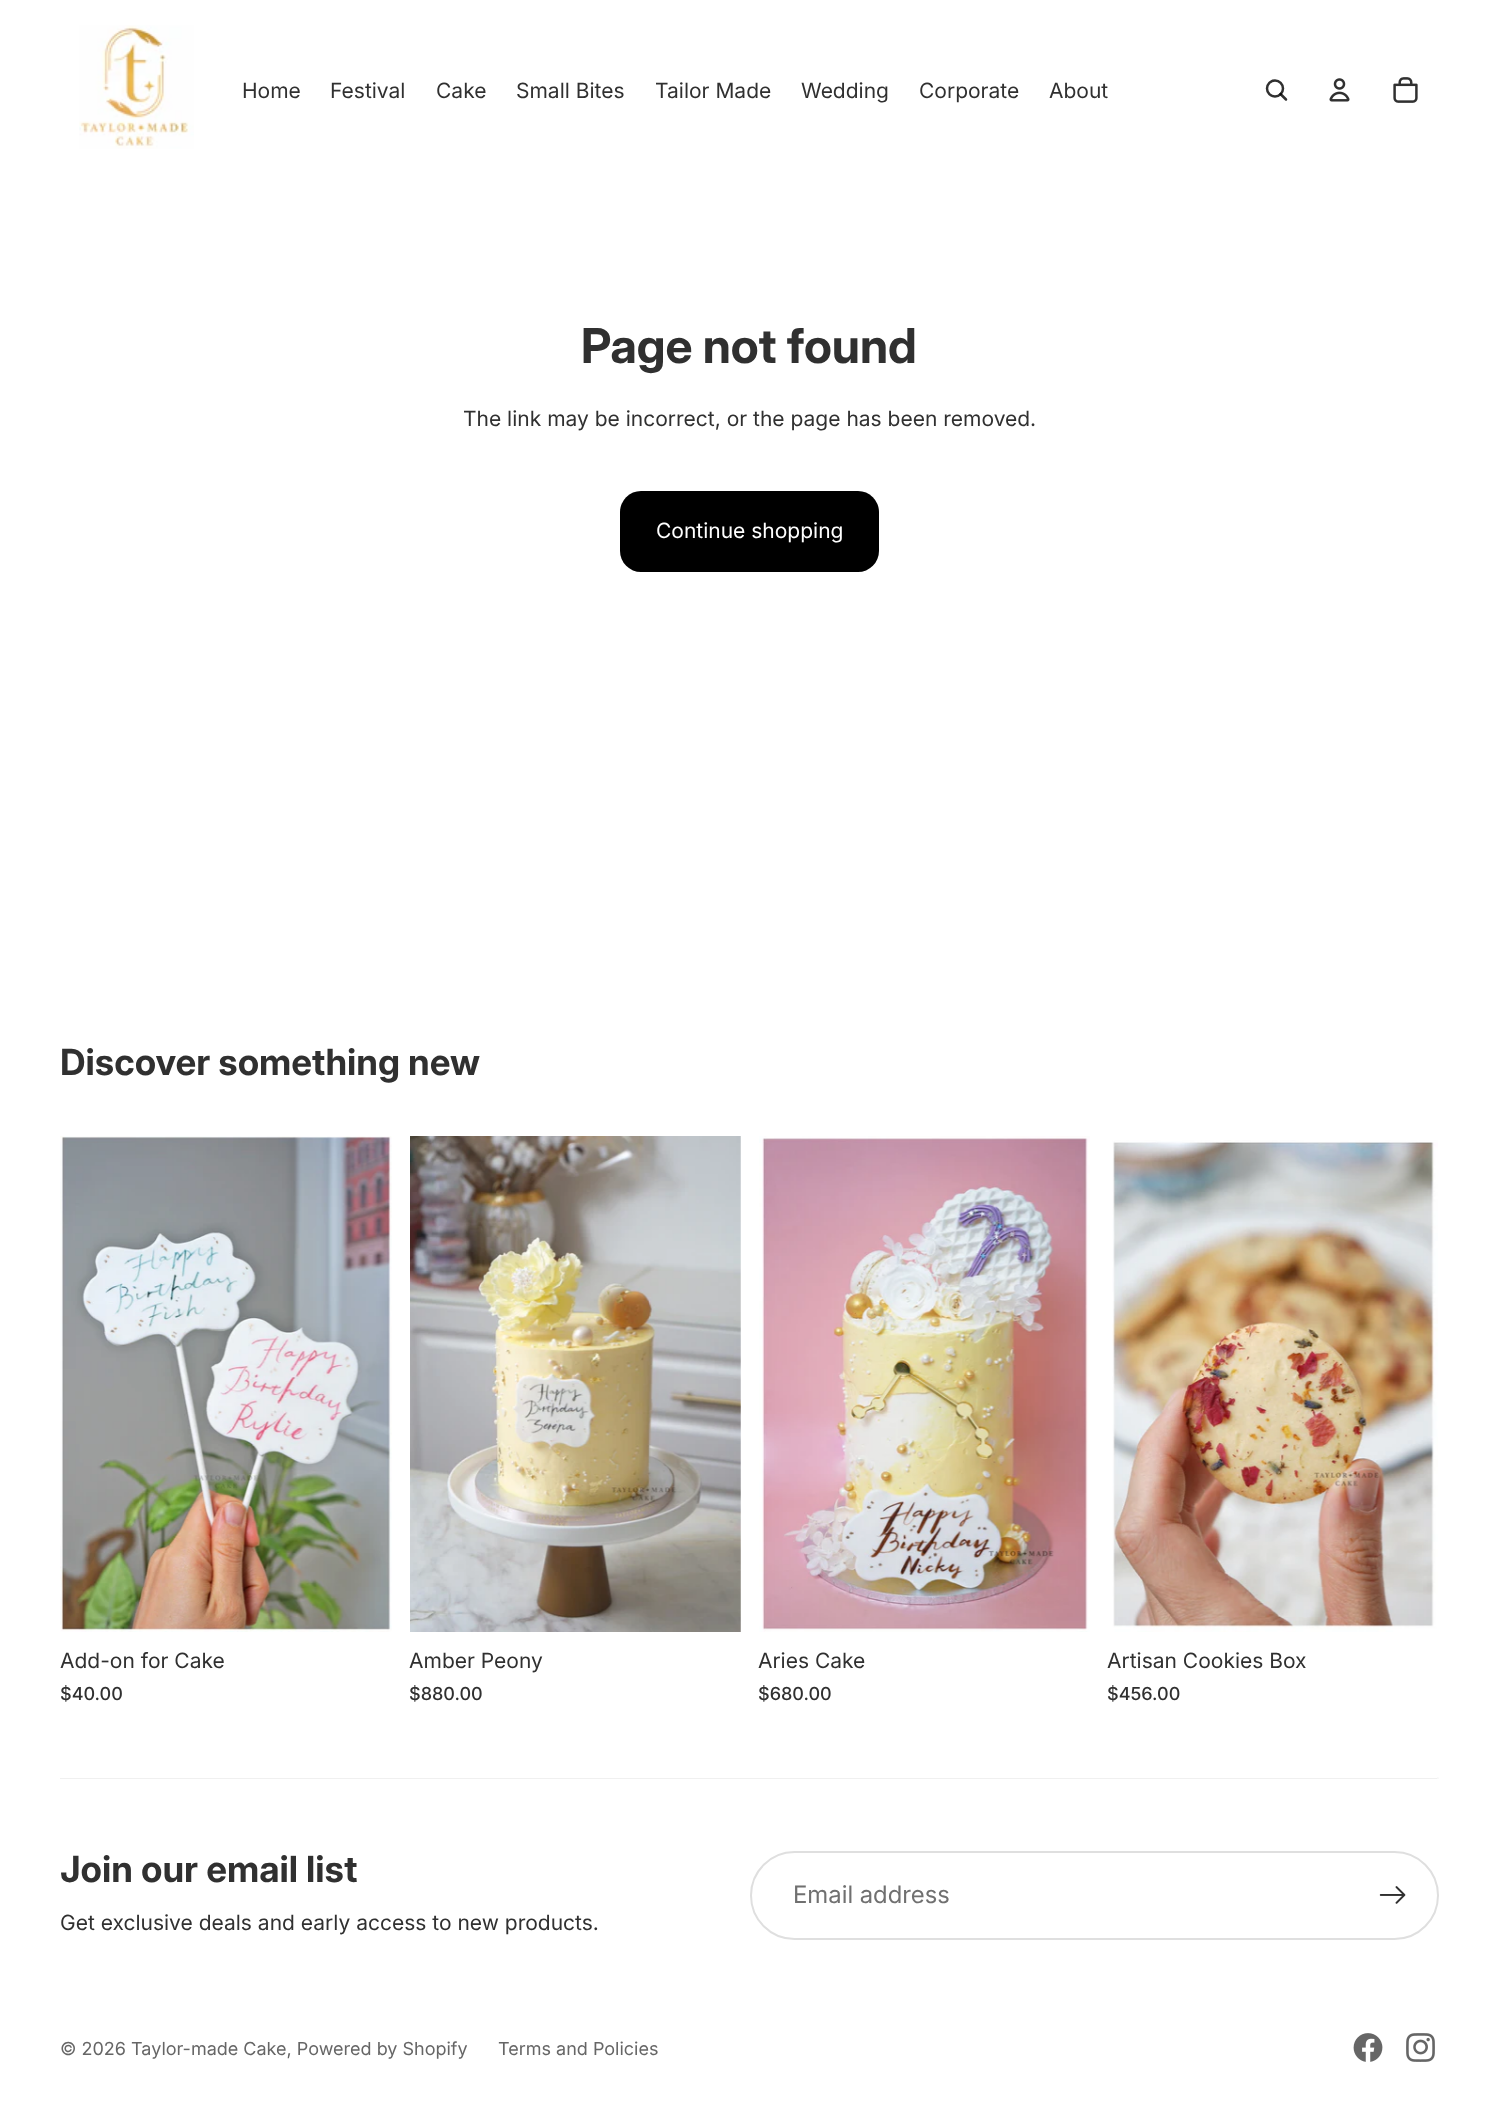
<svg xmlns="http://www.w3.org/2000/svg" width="1498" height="2110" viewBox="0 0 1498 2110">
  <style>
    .t1 { font: 21px Inter; fill: #303030; }
    .t2 { font: bold 48px Inter; fill: #303030; }
    .t3 { font: 21px Inter; fill: #fff; }
    .t4 { font: bold 36px 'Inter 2'; fill: #303030; }
    .t5 { font: 500 18px Inter; fill: #303030; }
    .t6 { font: 24px 'Inter 2'; fill: #707070; }
    .t7 { font: 18px Inter; fill: #666; }
  </style>
  <rect width="100%" height="100%" fill="#fff"/>
  <image x="79" y="25" width="115" height="124" href="images/1.png"/>
  <text x="242" y="98" class="t1">Home</text>
  <text x="330" y="98" class="t1">Festival</text>
  <text x="436" y="98" class="t1">Cake</text>
  <text x="516" y="98" class="t1">Small Bites</text>
  <text x="655" y="98" class="t1">Tailor Made</text>
  <text x="801" y="98" class="t1">Wedding</text>
  <text x="919" y="98" class="t1">Corporate</text>
  <text x="1049" y="98" class="t1">About</text>
  <circle cx="1275" cy="88.5" r="8" fill="none" stroke="#303030" stroke-width="2.5"/>
  <path d="M1280.5 94L1286 99.5" fill="none" stroke="#000000cf" stroke-width="2.5" stroke-linecap="round" stroke-linejoin="round"/>
  <image x="1329" y="78" width="21" height="24" href="images/2.png"/>
  <image x="1393" y="77" width="25" height="26" href="images/3.png"/>
  <text x="581" y="363" class="t2">Page not found</text>
  <text x="463" y="426" class="t1">The link may be incorrect, or the page has been removed.</text>
  <rect x="620" y="491" width="259" height="81" rx="21" fill="#000"/>
  <text x="656" y="538" class="t3">Continue shopping</text>
  <text x="60" y="1075" class="t4">Discover something new</text>
  <image x="60" y="1136" width="332" height="496" href="images/4.png"/>
  <text x="60" y="1668" class="t1">Add-on for Cake</text>
  <text x="60" y="1700" class="t5">$40.00</text>
  <image x="410" y="1136" width="331" height="496" href="images/5.png"/>
  <text x="409" y="1668" class="t1">Amber Peony</text>
  <text x="409" y="1700" class="t5">$880.00</text>
  <image x="759" y="1136" width="331" height="496" href="images/6.png"/>
  <text x="758" y="1668" class="t1">Aries Cake</text>
  <text x="758" y="1700" class="t5">$680.00</text>
  <image x="1112" y="1140" width="326" height="492" href="images/7.png"/>
  <text x="1107" y="1668" class="t1">Artisan Cookies Box</text>
  <text x="1107" y="1700" class="t5">$456.00</text>
  <path d="M1438.5 1777.5V1779L1437 1777.5Z" fill="#f0f0f0"/>
  <path d="M1438 1779H60V1778H1437Z" fill="#f0f0f0"/>
  <text x="60" y="1882" class="t4">Join our email list</text>
  <text x="60" y="1930" class="t1">Get exclusive deals and early access to new products.</text>
  <rect x="751" y="1852" width="687" height="87" rx="43.5" fill="none" stroke="#dfdfdf" stroke-width="2"/>
  <text x="793" y="1903" class="t6">Email address</text>
  <image x="1379" y="1886" width="27" height="18" href="images/8.png"/>
  <text x="60" y="2055" class="t7">© 2026 Taylor-made Cake, Powered by Shopify</text>
  <text x="498" y="2055" class="t7">Terms and Policies</text>
  <image x="1353" y="2033" width="30" height="29" href="images/9.png"/>
  <image x="1406" y="2033" width="29" height="29" href="images/10.png"/>
</svg>
